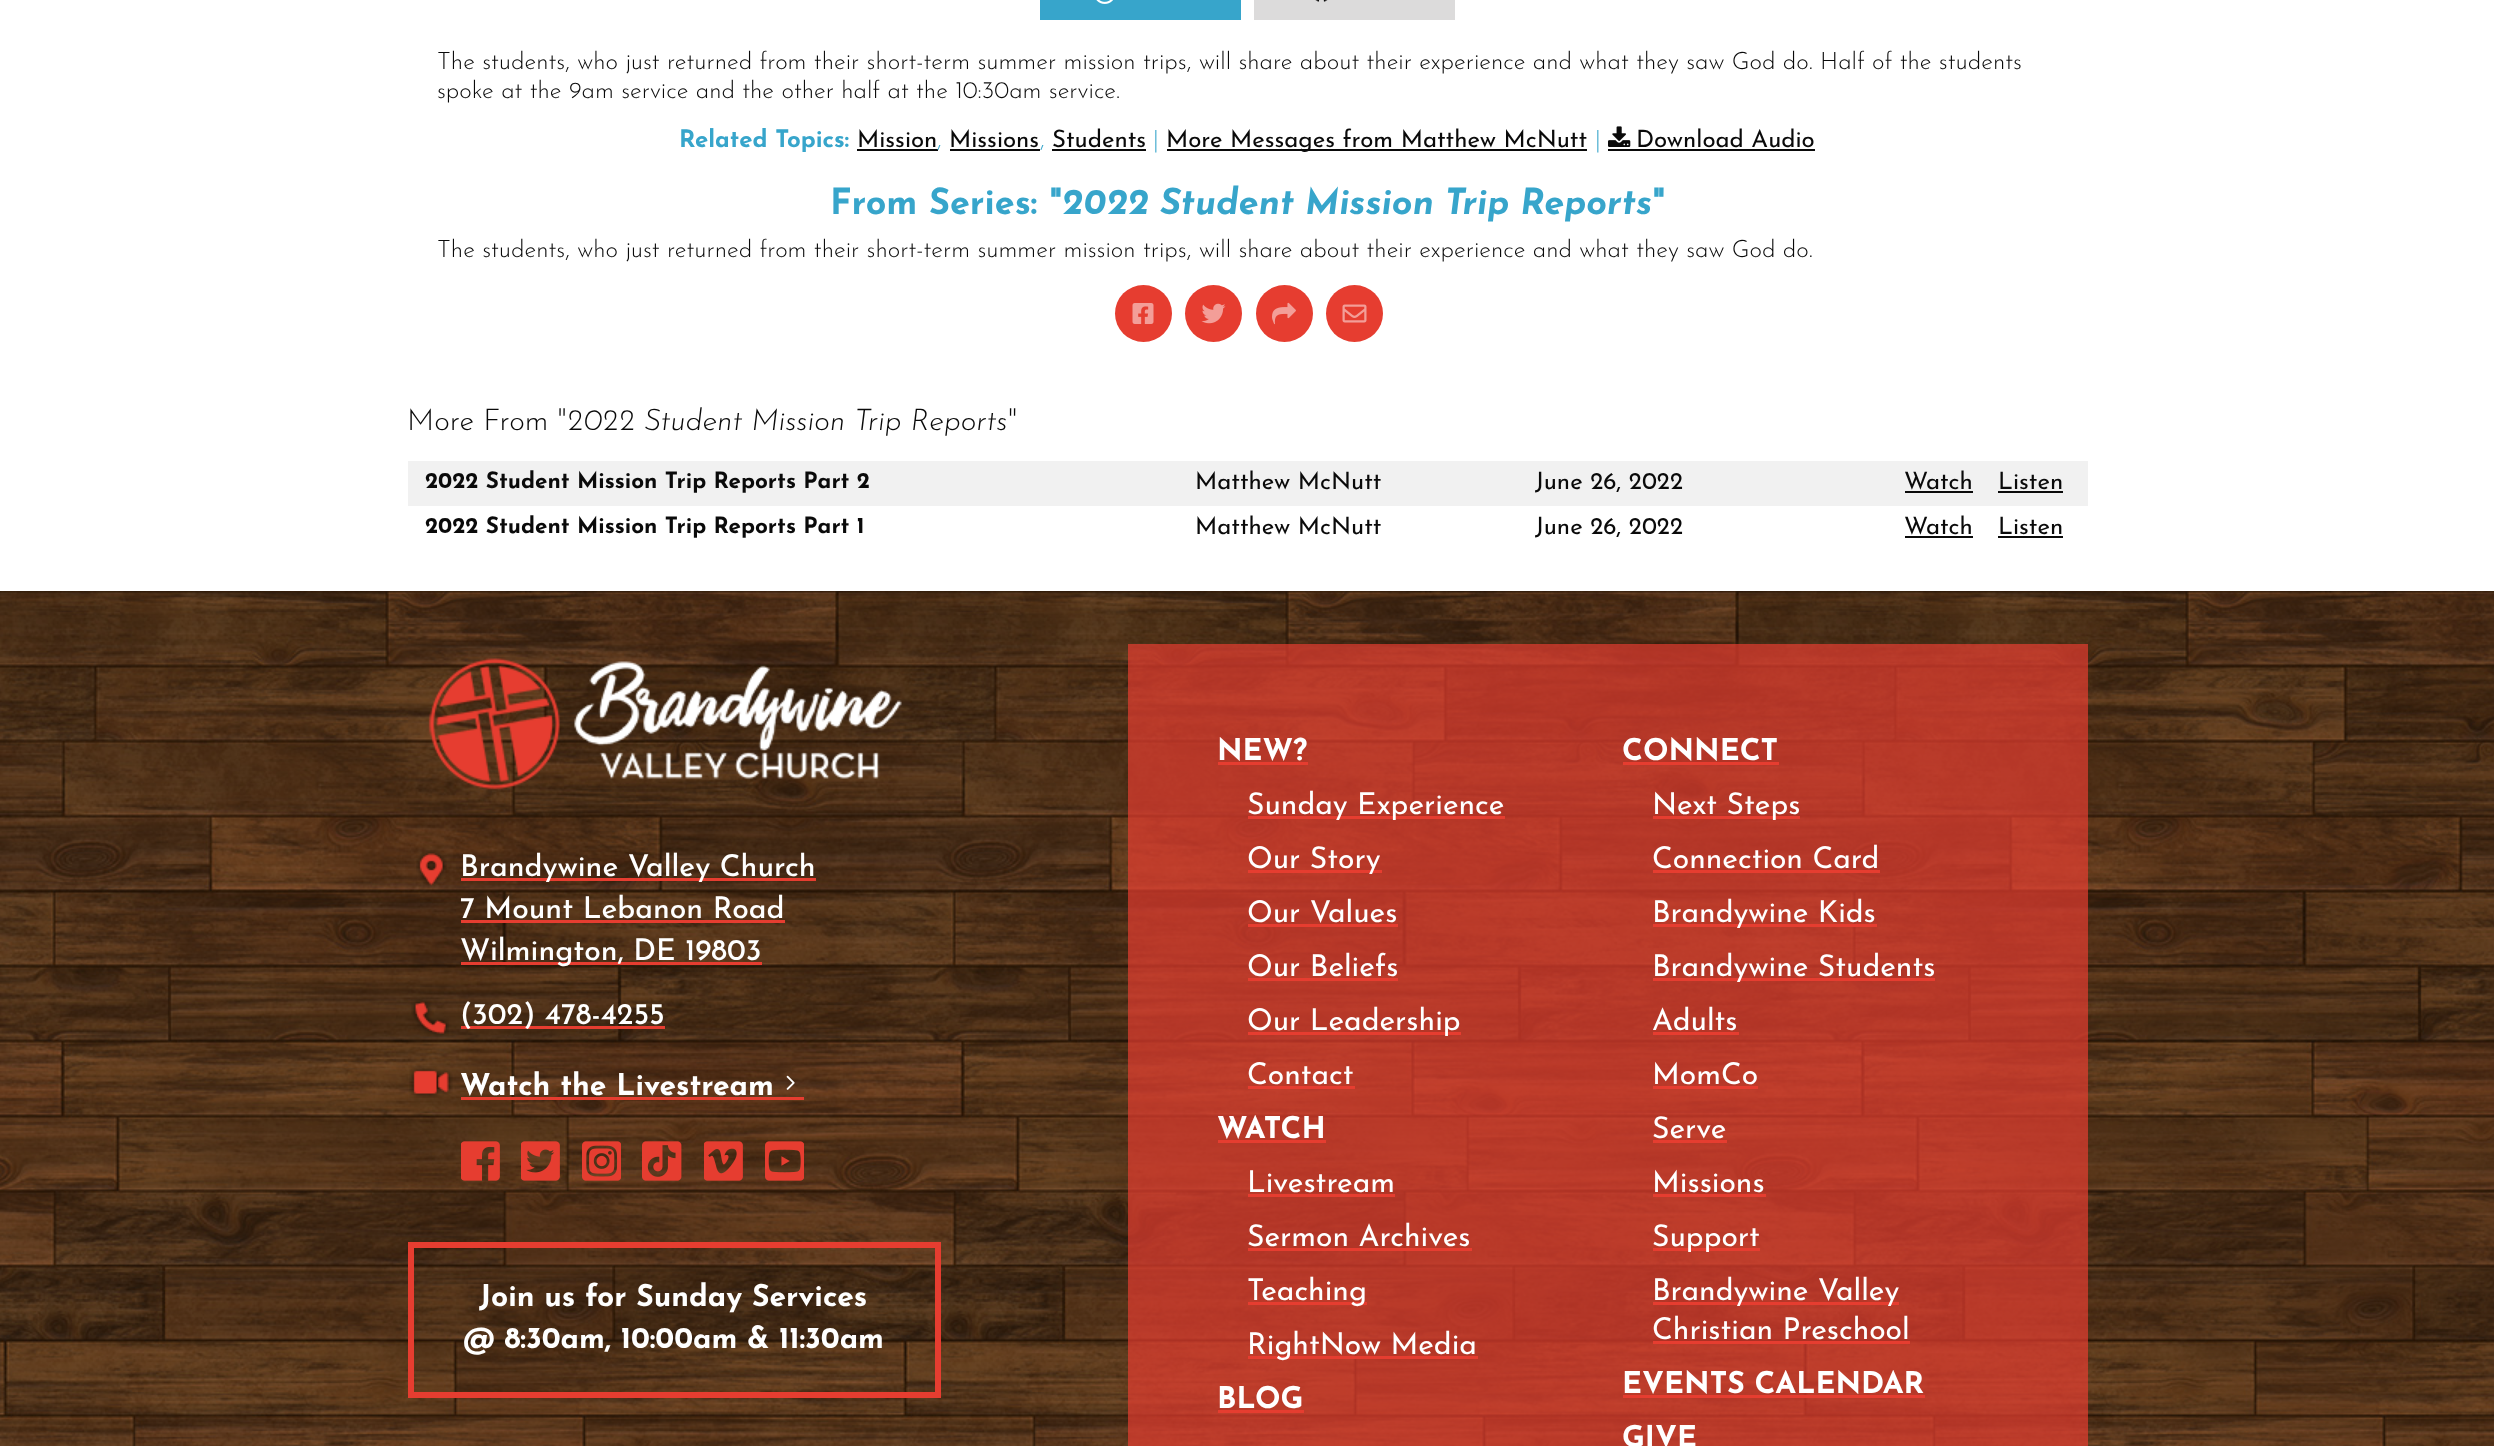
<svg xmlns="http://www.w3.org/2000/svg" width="2494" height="1446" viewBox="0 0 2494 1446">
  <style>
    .t1 { font: 100 24px Josefin Sans; fill: #0a0a0a; }
    .t2 { font: 100 24px 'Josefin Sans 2'; fill: #37a5cb; }
    .t3 { font: 100 24px 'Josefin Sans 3'; fill: #0a0a0a; }
    .t4 { font: 100 24px Josefin Sans; fill: #37a5cb; }
    .t5 { font: 100 36px 'Josefin Sans 2'; fill: #37a5cb; }
    .t6 { font: italic 100 36px Josefin Sans; fill: #37a5cb; }
    .t7 { font: 100 30px Josefin Sans; fill: #0a0a0a; }
    .t8 { font: italic 100 30px 'Josefin Sans 2'; fill: #0a0a0a; }
    .t9 { font: 100 22.5px 'Josefin Sans 2'; fill: #0a0a0a; }
    .t10 { font: 100 30px 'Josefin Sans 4'; fill: #fff; }
    .t11 { font: 100 30px 'Josefin Sans 2'; fill: #fff; }
    .t12 { font: 100 30px 'Josefin Sans 3'; fill: #fff; }
  </style>
  <rect width="100%" height="100%" fill="#fff"/>
  <rect x="1040" y="0" width="201" height="20" fill="#37a5cb"/>
  <image x="1096" y="0" width="17" height="4" href="images/1.png"/>
  <rect x="1254" y="0" width="201" height="20" fill="#dcdbdb"/>
  <image x="1315" y="0" width="13" height="2" href="images/2.png"/>
  <text x="437" y="69" class="t1">The students, who just returned from their short-term summer mission trips, will share about their experience and what they saw God do. Half of the students</text>
  <text x="437" y="98" class="t1">spoke at the 9am service and the other half at the 10:30am service.</text>
  <text x="679" y="147" class="t2">Related Topics:</text>
  <text x="857" y="147" class="t3">Mission</text>
  <rect x="857" y="149" width="81" height="2" fill="#0a0a0a"/>
  <text x="937" y="147" class="t4">,</text>
  <text x="949" y="147" class="t3">Missions</text>
  <rect x="950" y="149" width="90" height="2" fill="#0a0a0a"/>
  <text x="1040" y="147" class="t4">,</text>
  <text x="1052" y="147" class="t3">Students</text>
  <rect x="1052" y="149" width="94" height="2" fill="#0a0a0a"/>
  <text x="1153" y="147" class="t4">|</text>
  <rect x="1167" y="149" width="420" height="2" fill="#0a0a0a"/>
  <text x="1166" y="147" class="t3">More Messages from Matthew McNutt</text>
  <text x="1595" y="147" class="t4">|</text>
  <image x="1608" y="126" width="23" height="21" href="images/3.png"/>
  <text x="1636" y="147" class="t3">Download Audio</text>
  <rect x="1608" y="149" width="207" height="2" fill="#0a0a0a"/>
  <text x="830" y="214" class="t5">From Series: "</text>
  <text x="1062" y="214" class="t6">2022 Student Mission Trip Reports</text>
  <text x="1652" y="214" class="t5">"</text>
  <text x="437" y="257" class="t1">The students, who just returned from their short-term summer mission trips, will share about their experience and what they saw God do.</text>
  <circle cx="1143.5" cy="313.5" r="28.5" fill="#e63d30"/>
  <image x="1132" y="303" width="22" height="21" href="images/4.png"/>
  <circle cx="1213.5" cy="313.5" r="28.5" fill="#e63d30"/>
  <image x="1201" y="303" width="25" height="21" href="images/5.png"/>
  <circle cx="1284.5" cy="313.5" r="28.5" fill="#e63d30"/>
  <image x="1272" y="302" width="24" height="23" href="images/6.png"/>
  <circle cx="1354.5" cy="313.5" r="28.5" fill="#e63d30"/>
  <image x="1342" y="304" width="25" height="19" href="images/7.png"/>
  <text x="407" y="430" class="t7">More From "</text>
  <text x="567" y="430" class="t8">2022 Student Mission Trip Reports</text>
  <text x="1008" y="430" class="t7">"</text>
  <rect x="408" y="461" width="1680" height="45" fill="#f1f1f1"/>
  <text x="425" y="488" class="t9">2022 Student Mission Trip Reports Part 2</text>
  <text x="1195" y="489" class="t3">Matthew McNutt</text>
  <text x="1535" y="489" class="t3">June 26, 2022</text>
  <text x="1904" y="489" class="t3">Watch</text>
  <rect x="1905" y="491" width="68" height="2" fill="#0a0a0a"/>
  <text x="1998" y="489" class="t3">Listen</text>
  <rect x="1998" y="491" width="65" height="2" fill="#0a0a0a"/>
  <text x="425" y="533" class="t9">2022 Student Mission Trip Reports Part 1</text>
  <text x="1195" y="534" class="t3">Matthew McNutt</text>
  <text x="1535" y="534" class="t3">June 26, 2022</text>
  <text x="1904" y="534" class="t3">Watch</text>
  <rect x="1905" y="536" width="68" height="2" fill="#0a0a0a"/>
  <text x="1998" y="534" class="t3">Listen</text>
  <rect x="1998" y="536" width="65" height="2" fill="#0a0a0a"/>
  <image x="0" y="591" width="2494" height="855" href="images/8.png"/>
  <image x="428" y="658" width="474" height="132" href="images/9.png"/>
  <image x="416" y="850" width="31" height="38" href="images/10.png"/>
  <rect x="461" y="878" width="355" height="3" fill="#e63d30"/>
  <text x="460" y="876" class="t10">Brandywine Valley Church</text>
  <text x="460" y="918" class="t10">7 Mount Lebanon Road</text>
  <rect x="461" y="920" width="324" height="3" fill="#e63d30"/>
  <rect x="461" y="962" width="301" height="3" fill="#e63d30"/>
  <text x="460" y="960" class="t10">Wilmington, DE 19803</text>
  <image x="411" y="999" width="38" height="38" href="images/11.png"/>
  <rect x="461" y="1026" width="204" height="3" fill="#e63d30"/>
  <text x="460" y="1024" class="t10">(302) 478-4255</text>
  <image x="409" y="1066" width="44" height="32" href="images/12.png"/>
  <text x="460" y="1095" class="t11">Watch the Livestream</text>
  <rect x="461" y="1097" width="343" height="3" fill="#e63d30"/>
  <image x="786" y="1075" width="9" height="15" href="images/13.png"/>
  <image x="461" y="1141" width="39" height="40" href="images/14.png"/>
  <image x="521" y="1141" width="39" height="40" href="images/15.png"/>
  <image x="582" y="1141" width="39" height="40" href="images/16.png"/>
  <image x="642" y="1141" width="40" height="40" href="images/17.png"/>
  <image x="704" y="1141" width="39" height="40" href="images/18.png"/>
  <image x="765" y="1141" width="39" height="40" href="images/19.png"/>
  <rect x="411" y="1245" width="527" height="150" fill="none" stroke="#e63d30" stroke-width="6"/>
  <text x="479" y="1306" class="t11">Join us for Sunday Services</text>
  <text x="463" y="1348" class="t11">@ 8:30am, 10:00am &amp; 11:30am</text>
  <rect x="1128" y="644" width="960" height="802" fill="#e63d30b3"/>
  <text x="1217" y="760" class="t11">NEW?</text>
  <rect x="1218" y="762" width="90" height="3" fill="#e63d30"/>
  <rect x="1248" y="816" width="257" height="3" fill="#e63d30"/>
  <text x="1247" y="814" class="t12">Sunday Experience</text>
  <rect x="1248" y="870" width="134" height="3" fill="#e63d30"/>
  <text x="1247" y="868" class="t12">Our Story</text>
  <text x="1247" y="922" class="t12">Our Values</text>
  <rect x="1248" y="924" width="150" height="3" fill="#e63d30"/>
  <text x="1247" y="976" class="t12">Our Beliefs</text>
  <rect x="1248" y="978" width="150" height="3" fill="#e63d30"/>
  <rect x="1248" y="1032" width="213" height="3" fill="#e63d30"/>
  <text x="1247" y="1030" class="t12">Our Leadership</text>
  <text x="1247" y="1084" class="t12">Contact</text>
  <rect x="1248" y="1086" width="107" height="3" fill="#e63d30"/>
  <text x="1622" y="760" class="t11">CONNECT</text>
  <rect x="1623" y="762" width="156" height="3" fill="#e63d30"/>
  <rect x="1653" y="816" width="147" height="3" fill="#e63d30"/>
  <text x="1652" y="814" class="t12">Next Steps</text>
  <text x="1652" y="868" class="t12">Connection Card</text>
  <rect x="1653" y="870" width="227" height="3" fill="#e63d30"/>
  <rect x="1653" y="924" width="224" height="3" fill="#e63d30"/>
  <text x="1652" y="922" class="t12">Brandywine Kids</text>
  <rect x="1653" y="978" width="282" height="3" fill="#e63d30"/>
  <text x="1652" y="976" class="t12">Brandywine Students</text>
  <text x="1652" y="1030" class="t12">Adults</text>
  <rect x="1653" y="1032" width="86" height="3" fill="#e63d30"/>
  <text x="1652" y="1084" class="t12">MomCo</text>
  <rect x="1653" y="1086" width="105" height="3" fill="#e63d30"/>
  <text x="1652" y="1138" class="t12">Serve</text>
  <rect x="1653" y="1140" width="74" height="3" fill="#e63d30"/>
  <text x="1652" y="1192" class="t12">Missions</text>
  <rect x="1653" y="1194" width="113" height="3" fill="#e63d30"/>
  <rect x="1653" y="1248" width="107" height="3" fill="#e63d30"/>
  <text x="1652" y="1246" class="t12">Support</text>
  <rect x="1653" y="1302" width="246" height="3" fill="#e63d30"/>
  <text x="1652" y="1300" class="t12">Brandywine Valley</text>
  <text x="1652" y="1339" class="t12">Christian Preschool</text>
  <rect x="1653" y="1341" width="257" height="3" fill="#e63d30"/>
  <text x="1217" y="1138" class="t11">WATCH</text>
  <rect x="1218" y="1140" width="108" height="3" fill="#e63d30"/>
  <text x="1247" y="1192" class="t12">Livestream</text>
  <rect x="1248" y="1194" width="147" height="3" fill="#e63d30"/>
  <text x="1247" y="1246" class="t12">Sermon Archives</text>
  <rect x="1248" y="1248" width="224" height="3" fill="#e63d30"/>
  <rect x="1248" y="1302" width="119" height="3" fill="#e63d30"/>
  <text x="1247" y="1300" class="t12">Teaching</text>
  <rect x="1248" y="1356" width="230" height="3" fill="#e63d30"/>
  <text x="1247" y="1354" class="t12">RightNow Media</text>
  <text x="1622" y="1393" class="t11">EVENTS CALENDAR</text>
  <rect x="1623" y="1395" width="302" height="3" fill="#e63d30"/>
  <text x="1217" y="1408" class="t11">BLOG</text>
  <rect x="1218" y="1410" width="86" height="3" fill="#e63d30"/>
  <text x="1622" y="1447" class="t11">GIVE</text>
</svg>
